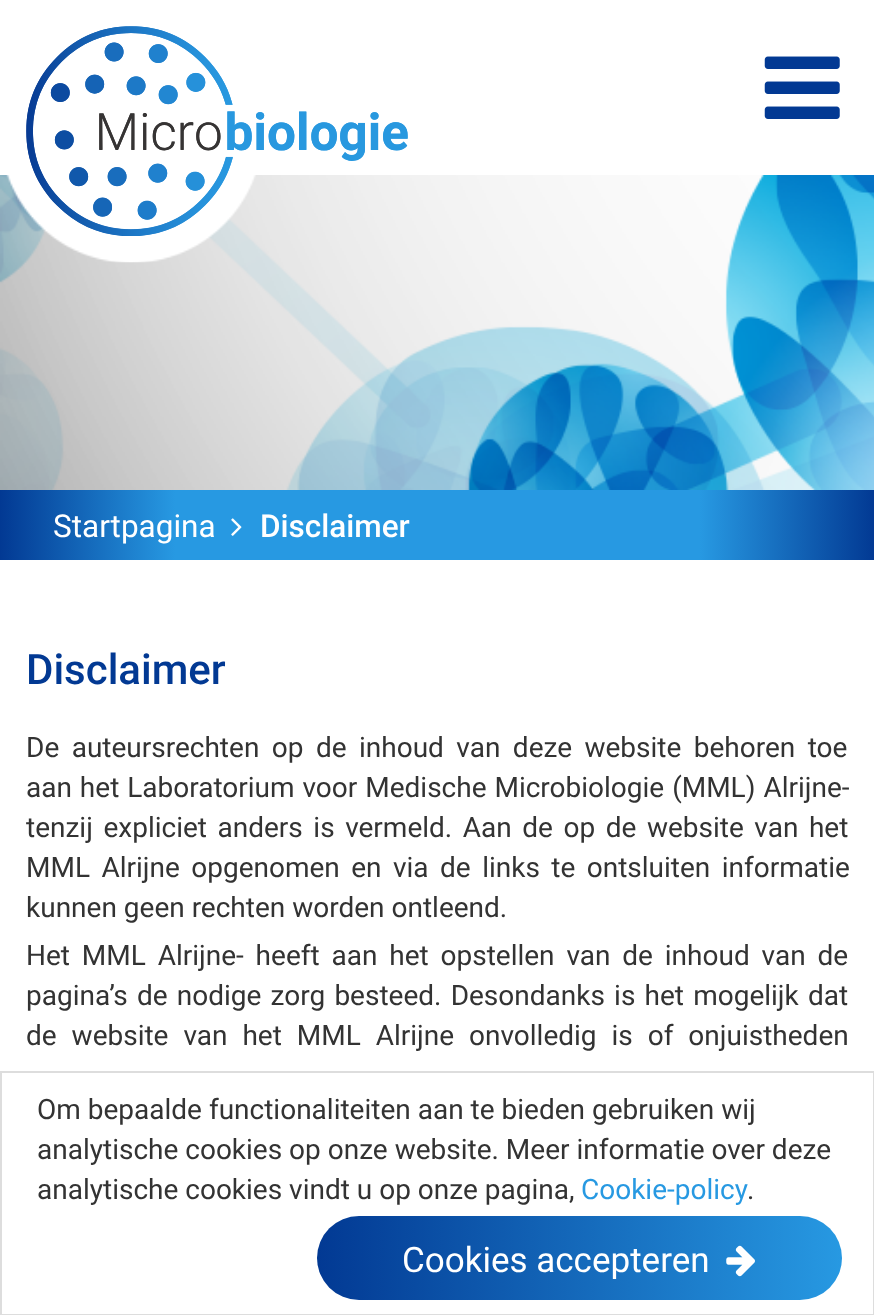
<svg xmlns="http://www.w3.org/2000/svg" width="874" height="1315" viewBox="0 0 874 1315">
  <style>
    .t1 { font: 31.5px Roboto; fill: #fff; }
    .t2 { font: 500 31.5px Roboto; fill: #fff; }
    .t3 { font: 500 42px Roboto; fill: #023993; }
    .t4 { font: 28px Roboto; fill: #333; }
    .t5 { font: 28px Roboto; fill: #2799e2; }
    .t6 { font: 35px Roboto; fill: #fff; }
  </style>
  <defs>
    <linearGradient id="g1" gradientUnits="userSpaceOnUse" x1="0" y1="525" x2="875" y2="525"><stop offset="0" stop-color="#023993"/><stop offset="0.2" stop-color="#2799e2"/><stop offset="0.8" stop-color="#2799e2"/><stop offset="1" stop-color="#023993"/></linearGradient>
    <linearGradient id="g2" gradientUnits="userSpaceOnUse" x1="317" y1="1258" x2="842" y2="1258"><stop offset="0" stop-color="#023993"/><stop offset="1" stop-color="#2799e2"/></linearGradient>
  </defs>
  <rect width="100%" height="100%" fill="#fff"/>
  <image x="0" y="175" width="874" height="315" href="images/4.png"/>
  <image x="6" y="26" width="402" height="237" href="images/1.png"/>
  <image x="26" y="26" width="382" height="210" href="images/2.png"/>
  <image x="764" y="56" width="76" height="63" href="images/3.png"/>
  <rect x="0" y="490" width="874" height="70" fill="url(#g1)"/>
  <text x="53" y="537" class="t1">Startpagina</text>
  <image x="231" y="518" width="11" height="18" href="images/5.png"/>
  <text x="260" y="537" class="t2">Disclaimer</text>
  <text x="26" y="684" class="t3">Disclaimer</text>
  <text x="26" y="757" word-spacing="5.5" class="t4">De auteursrechten op de inhoud van deze website behoren toe</text>
  <text x="26" y="797" word-spacing="1" class="t4">aan het Laboratorium voor Medische Microbiologie (MML) Alrijne-</text>
  <text x="26" y="837" word-spacing="3.6" class="t4">tenzij expliciet anders is vermeld. Aan de op de website van het</text>
  <text x="26" y="877" word-spacing="4.5" class="t4">MML Alrijne opgenomen en via de links te ontsluiten informatie</text>
  <text x="26" y="917" class="t4">kunnen geen rechten worden ontleend.</text>
  <text x="26" y="965" word-spacing="4.9" class="t4">Het MML Alrijne- heeft aan het opstellen van de inhoud van de</text>
  <text x="26" y="1005" word-spacing="2.25" class="t4">pagina’s de nodige zorg besteed. Desondanks is het mogelijk dat</text>
  <text x="26" y="1045" word-spacing="8" class="t4">de website van het MML Alrijne onvolledig is of onjuistheden</text>
  <rect x="1" y="1072" width="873" height="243" fill="none" stroke="#ddd" stroke-width="2"/>
  <text x="37" y="1119" class="t4">Om bepaalde functionaliteiten aan te bieden gebruiken wij</text>
  <text x="37" y="1159" class="t4">analytische cookies op onze website. Meer informatie over deze</text>
  <text x="37" y="1199" class="t4">analytische cookies vindt u op onze pagina,</text>
  <text x="581" y="1199" class="t5">Cookie-policy</text>
  <text x="747" y="1199" class="t4">.</text>
  <rect x="317" y="1216" width="525" height="84" rx="42" fill="url(#g2)"/>
  <text x="402" y="1272" class="t6">Cookies accepteren</text>
  <image x="726" y="1245" width="29" height="32" href="images/6.png"/>
</svg>
